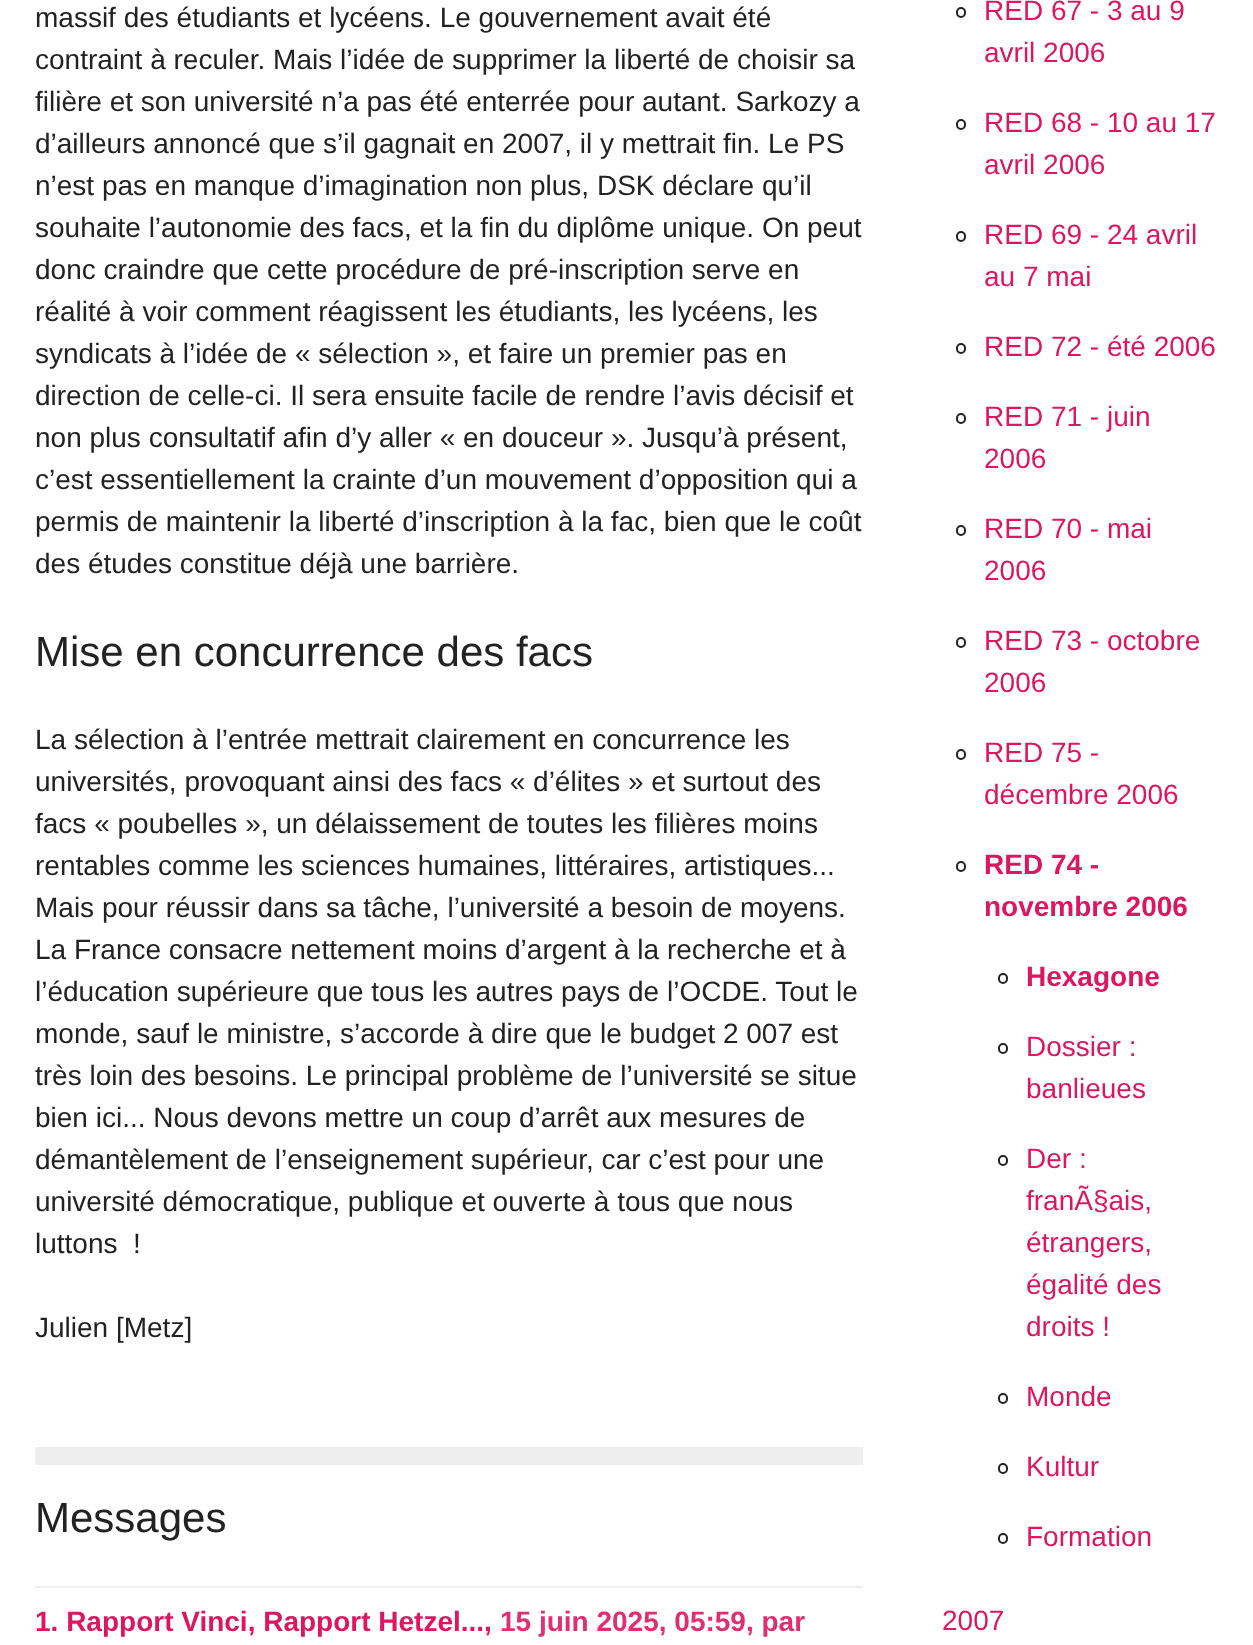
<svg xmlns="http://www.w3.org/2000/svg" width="1253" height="1645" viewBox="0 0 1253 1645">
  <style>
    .t1 { font: 28px Liberation Sans; fill: #222; }
    .t2 { font: 42px Liberation Sans; fill: #222; }
    .t3 { font: bold 28px Liberation Sans; fill: #db1762; }
    .t4 { font: bold 28px Liberation Sans; fill: #df2e72; }
    .t5 { font: 28px Liberation Sans; fill: #db1762; }
  </style>
  <rect width="100%" height="100%" fill="#fff"/>
  <text x="35" y="27" class="t1">massif des étudiants et lycéens. Le gouvernement avait été</text>
  <text x="35" y="69" class="t1">contraint à reculer. Mais l’idée de supprimer la liberté de choisir sa</text>
  <text x="35" y="111" class="t1">filière et son université n’a pas été enterrée pour autant. Sarkozy a</text>
  <text x="35" y="153" class="t1">d’ailleurs annoncé que s’il gagnait en 2007, il y mettrait fin. Le PS</text>
  <text x="35" y="195" class="t1">n’est pas en manque d’imagination non plus, DSK déclare qu’il</text>
  <text x="35" y="237" class="t1">souhaite l’autonomie des facs, et la fin du diplôme unique. On peut</text>
  <text x="35" y="279" class="t1">donc craindre que cette procédure de pré-inscription serve en</text>
  <text x="35" y="321" class="t1">réalité à voir comment réagissent les étudiants, les lycéens, les</text>
  <text x="35" y="363" class="t1">syndicats à l’idée de « sélection », et faire un premier pas en</text>
  <text x="35" y="405" class="t1">direction de celle-ci. Il sera ensuite facile de rendre l’avis décisif et</text>
  <text x="35" y="447" class="t1">non plus consultatif afin d’y aller « en douceur ». Jusqu’à présent,</text>
  <text x="35" y="489" class="t1">c’est essentiellement la crainte d’un mouvement d’opposition qui a</text>
  <text x="35" y="531" class="t1">permis de maintenir la liberté d’inscription à la fac, bien que le coût</text>
  <text x="35" y="573" class="t1">des études constitue déjà une barrière.</text>
  <text x="35" y="666" class="t2">Mise en concurrence des facs</text>
  <text x="35" y="749" class="t1">La sélection à l’entrée mettrait clairement en concurrence les</text>
  <text x="35" y="791" class="t1">universités, provoquant ainsi des facs « d’élites » et surtout des</text>
  <text x="35" y="833" class="t1">facs « poubelles », un délaissement de toutes les filières moins</text>
  <text x="35" y="875" class="t1">rentables comme les sciences humaines, littéraires, artistiques...</text>
  <text x="35" y="917" class="t1">Mais pour réussir dans sa tâche, l’université a besoin de moyens.</text>
  <text x="35" y="959" class="t1">La France consacre nettement moins d’argent à la recherche et à</text>
  <text x="35" y="1001" class="t1">l’éducation supérieure que tous les autres pays de l’OCDE. Tout le</text>
  <text x="35" y="1043" class="t1">monde, sauf le ministre, s’accorde à dire que le budget 2 007 est</text>
  <text x="35" y="1085" class="t1">très loin des besoins. Le principal problème de l’université se situe</text>
  <text x="35" y="1127" class="t1">bien ici... Nous devons mettre un coup d’arrêt aux mesures de</text>
  <text x="35" y="1169" class="t1">démantèlement de l’enseignement supérieur, car c’est pour une</text>
  <text x="35" y="1211" class="t1">université démocratique, publique et ouverte à tous que nous</text>
  <text x="35" y="1253" class="t1" xml:space="preserve">luttons  !</text>
  <text x="35" y="1337" class="t1">Julien [Metz]</text>
  <rect x="35" y="1447" width="828" height="18" fill="#eee"/>
  <text x="35" y="1532" class="t2">Messages</text>
  <rect x="35" y="1586" width="828" height="2" fill="#eee"/>
  <text x="35" y="1631" class="t3">1. Rapport Vinci, Rapport Hetzel...,</text>
  <text x="500" y="1631" class="t4">15 juin 2025, 05:59, par</text>
  <rect x="957" y="8" width="8" height="9" rx="4" fill="none" stroke="#222" stroke-width="2"/>
  <text x="984" y="20" class="t5">RED 67 - 3 au 9</text>
  <text x="984" y="62" class="t5">avril 2006</text>
  <rect x="957" y="120" width="8" height="9" rx="4" fill="none" stroke="#222" stroke-width="2"/>
  <text x="984" y="132" class="t5">RED 68 - 10 au 17</text>
  <text x="984" y="174" class="t5">avril 2006</text>
  <rect x="957" y="232" width="8" height="9" rx="4" fill="none" stroke="#222" stroke-width="2"/>
  <text x="984" y="244" class="t5">RED 69 - 24 avril</text>
  <text x="984" y="286" class="t5">au 7 mai</text>
  <rect x="957" y="344" width="8" height="9" rx="4" fill="none" stroke="#222" stroke-width="2"/>
  <text x="984" y="356" class="t5">RED 72 - été 2006</text>
  <rect x="957" y="414" width="8" height="9" rx="4" fill="none" stroke="#222" stroke-width="2"/>
  <text x="984" y="426" class="t5">RED 71 - juin</text>
  <text x="984" y="468" class="t5">2006</text>
  <rect x="957" y="526" width="8" height="9" rx="4" fill="none" stroke="#222" stroke-width="2"/>
  <text x="984" y="538" class="t5">RED 70 - mai</text>
  <text x="984" y="580" class="t5">2006</text>
  <rect x="957" y="638" width="8" height="9" rx="4" fill="none" stroke="#222" stroke-width="2"/>
  <text x="984" y="650" class="t5">RED 73 - octobre</text>
  <text x="984" y="692" class="t5">2006</text>
  <rect x="957" y="750" width="8" height="9" rx="4" fill="none" stroke="#222" stroke-width="2"/>
  <text x="984" y="762" class="t5">RED 75 -</text>
  <text x="984" y="804" class="t5">décembre 2006</text>
  <rect x="957" y="862" width="8" height="9" rx="4" fill="none" stroke="#222" stroke-width="2"/>
  <text x="984" y="874" class="t3">RED 74 -</text>
  <text x="984" y="916" class="t3">novembre 2006</text>
  <rect x="999" y="974" width="8" height="9" rx="4" fill="none" stroke="#222" stroke-width="2"/>
  <text x="1026" y="986" class="t3">Hexagone</text>
  <rect x="999" y="1044" width="8" height="9" rx="4" fill="none" stroke="#222" stroke-width="2"/>
  <text x="1026" y="1056" class="t5">Dossier :</text>
  <text x="1026" y="1098" class="t5">banlieues</text>
  <rect x="999" y="1156" width="8" height="9" rx="4" fill="none" stroke="#222" stroke-width="2"/>
  <text x="1026" y="1168" class="t5">Der :</text>
  <text x="1026" y="1210" class="t5">franÃ§ais,</text>
  <text x="1026" y="1252" class="t5">étrangers,</text>
  <text x="1026" y="1294" class="t5">égalité des</text>
  <text x="1026" y="1336" class="t5">droits !</text>
  <rect x="999" y="1394" width="8" height="9" rx="4" fill="none" stroke="#222" stroke-width="2"/>
  <text x="1026" y="1406" class="t5">Monde</text>
  <rect x="999" y="1464" width="8" height="9" rx="4" fill="none" stroke="#222" stroke-width="2"/>
  <text x="1026" y="1476" class="t5">Kultur</text>
  <rect x="999" y="1534" width="8" height="9" rx="4" fill="none" stroke="#222" stroke-width="2"/>
  <text x="1026" y="1546" class="t5">Formation</text>
  <text x="942" y="1630" class="t5">2007</text>
</svg>
